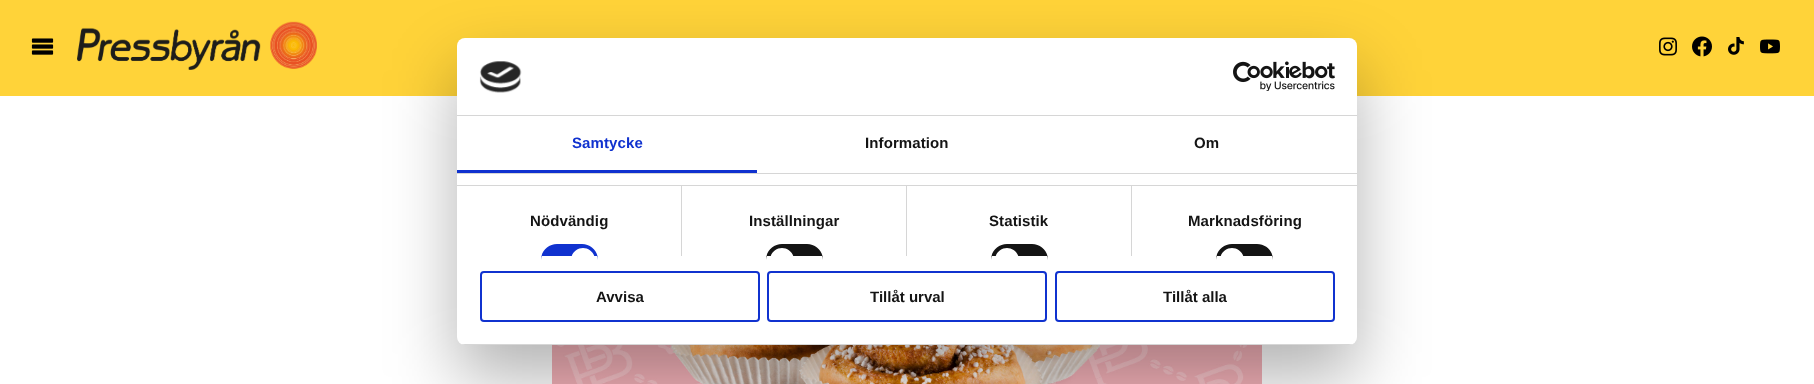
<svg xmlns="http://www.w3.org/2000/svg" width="1814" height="384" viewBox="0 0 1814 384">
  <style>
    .t1 { font: bold 15px Liberation Sans; letter-spacing: 0.1px; fill: #1032cf; }
    .t2 { font: bold 15px Liberation Sans; letter-spacing: 0.1px; fill: #141414; }
    .t3 { font: bold 15px Liberation Sans; fill: #141414; }
  </style>
  <defs>
    <clipPath id="clip1"><rect x="457" y="38" width="900" height="307" rx="8"/></clipPath>
  </defs>
  <rect width="100%" height="100%" fill="#fff"/>
  <rect x="0" y="0" width="1814" height="96" fill="#ffd339"/>
  <image x="31" y="38" width="23" height="17" href="images/1.png"/>
  <image x="77" y="21" width="240" height="49" href="images/2.png"/>
  <image x="1659" y="37" width="18" height="19" href="images/3.png"/>
  <image x="1692" y="36" width="20" height="21" href="images/4.png"/>
  <image x="1728" y="37" width="16" height="18" href="images/5.png"/>
  <image x="1760" y="39" width="20" height="15" href="images/6.png"/>
  <image x="552" y="345" width="710" height="39" href="images/9.png"/>
  <rect x="457" y="70" width="900" height="307" rx="8" fill="#0000004d" filter="blur(34px)"/>
  <rect x="457" y="38" width="900" height="307" rx="8" fill="#fff"/>
  <rect x="457" y="115" width="900" height="1" fill="#d6d6d6"/>
  <image x="479" y="61" width="43" height="32" href="images/7.png"/>
  <image x="1233" y="61" width="102" height="30" href="images/8.png"/>
  <rect x="457" y="173" width="900" height="1" fill="#d6d6d6"/>
  <rect x="457" y="170" width="300" height="3" fill="#1032cf"/>
  <text x="572" y="148" class="t1">Samtycke</text>
  <text x="865" y="148" class="t2">Information</text>
  <text x="1194" y="148" class="t2">Om</text>
  <rect x="457" y="185" width="900" height="1" fill="#d6d6d6"/>
  <rect x="681" y="186" width="1" height="70" fill="#d6d6d6"/>
  <text x="530" y="226" class="t2">Nödvändig</text>
  <path d="M557 244H582C591 244 598 251 598 260V256H541V260C541 251 548 244 557 244Z" fill="#1032cf"/>
  <path d="M583 248C589.5 248 595 253.5 595 260V256H571V260C571 253.5 576.5 248 583 248Z" fill="#fff"/>
  <rect x="906" y="186" width="1" height="70" fill="#d6d6d6"/>
  <text x="749" y="226" class="t2">Inställningar</text>
  <path d="M782 244H807C816 244 823 251 823 260V256H766V260C766 251 773 244 782 244Z" fill="#141414"/>
  <path d="M782 248C788.5 248 794 253.5 794 260V256H770V260C770 253.5 775.5 248 782 248Z" fill="#fff"/>
  <rect x="1131" y="186" width="1" height="70" fill="#d6d6d6"/>
  <text x="989" y="226" class="t2">Statistik</text>
  <path d="M1007 244H1032C1041 244 1048 251 1048 260V256H991V260C991 251 998 244 1007 244Z" fill="#141414"/>
  <path d="M1007 248C1013.5 248 1019 253.5 1019 260V256H995V260C995 253.5 1000.5 248 1007 248Z" fill="#fff"/>
  <text x="1188" y="226" class="t2">Marknadsföring</text>
  <path d="M1232 244H1257C1266 244 1273 251 1273 260V256H1216V260C1216 251 1223 244 1232 244Z" fill="#141414"/>
  <path d="M1232 248C1238.5 248 1244 253.5 1244 260V256H1220V260C1220 253.5 1225.5 248 1232 248Z" fill="#fff"/>
  <g clip-path="url(#clip1)">
    <rect x="457" y="344" width="900" height="1" fill="#d6d6d6"/>
  </g>
  <rect x="481" y="272" width="278" height="49" rx="3" fill="none" stroke="#1032cf" stroke-width="2"/>
  <text x="596" y="302" class="t3">Avvisa</text>
  <rect x="768" y="272" width="278" height="49" rx="3" fill="none" stroke="#1032cf" stroke-width="2"/>
  <text x="870" y="302" class="t3">Tillåt urval</text>
  <rect x="1056" y="272" width="278" height="49" rx="3" fill="none" stroke="#1032cf" stroke-width="2"/>
  <text x="1163" y="302" class="t3">Tillåt alla</text>
</svg>
